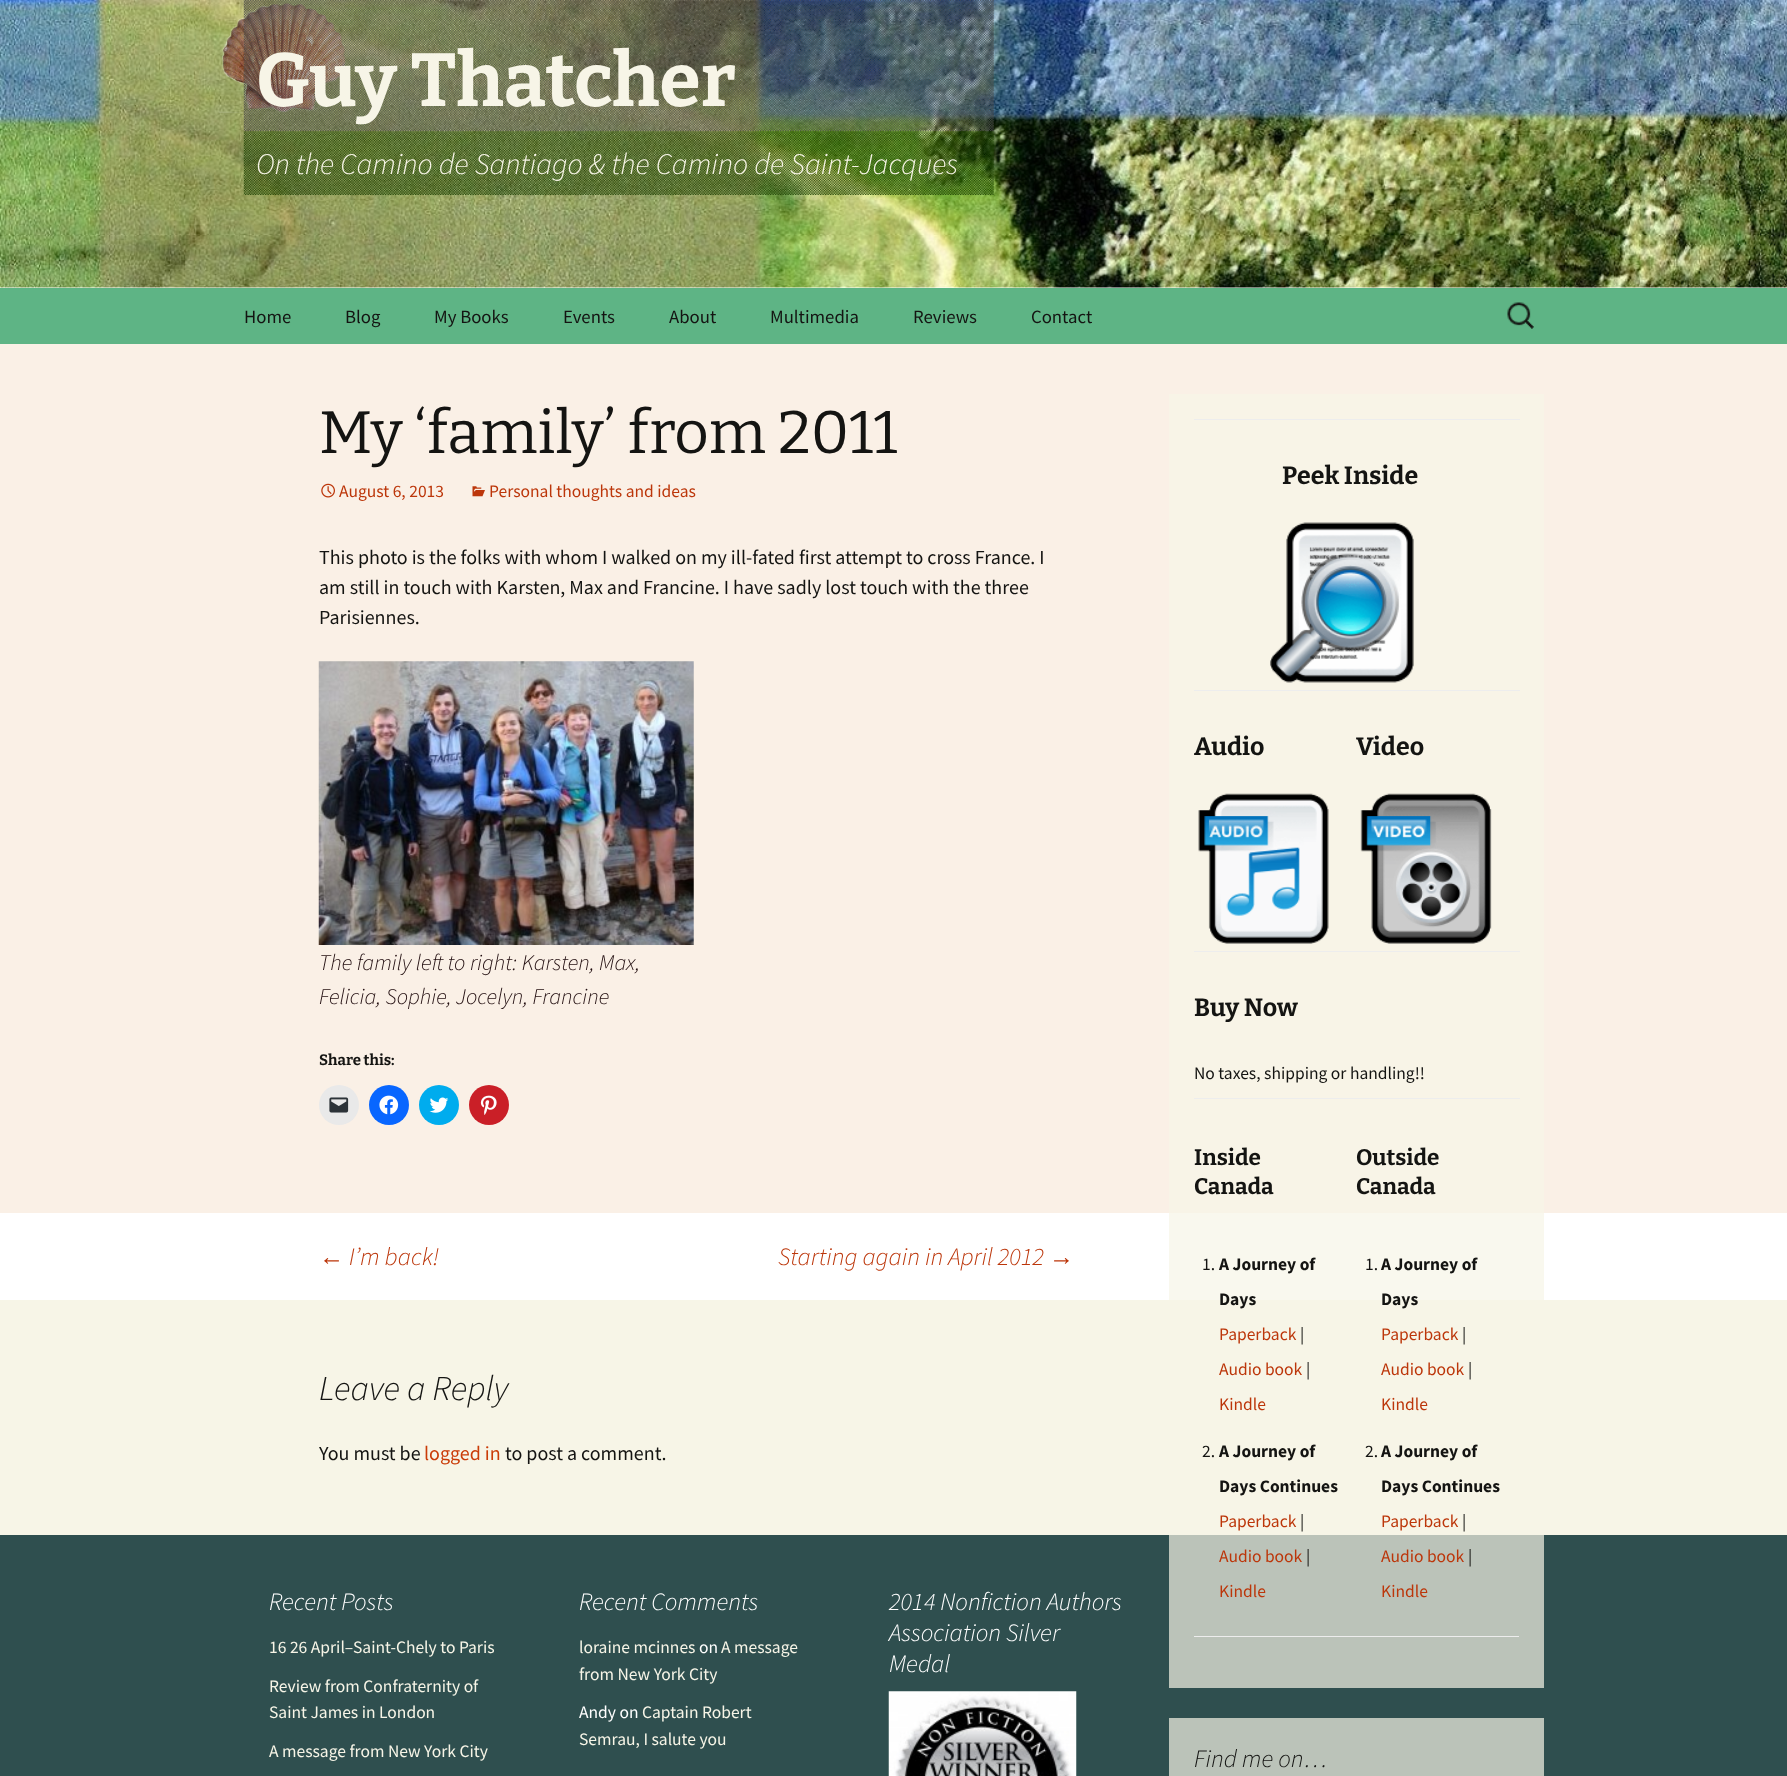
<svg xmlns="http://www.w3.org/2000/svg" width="1787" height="1776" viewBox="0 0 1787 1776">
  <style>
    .t1 { font: 100 75px Bitter; fill: #f7f5e7; }
    .t2 { font: italic 300 30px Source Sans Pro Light; fill: #f7f5e7; }
    .t3 { font: 18.75px Source Sans Pro; fill: #141412; }
    .t4 { font: 100 60px 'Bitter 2'; fill: #141412; }
    .t5 { font: 17.5px Source Sans Pro; fill: #bc360a; }
    .t6 { font: 20px Source Sans Pro; fill: #141412; }
    .t7 { font: italic 300 22.5px Source Sans Pro Light; fill: #220e10; }
    .t8 { font: 100 15px Bitter; fill: #141412; }
    .t9 { font: italic 25px Liberation Sans; fill: #bc360a; }
    .t10 { font: italic 300 25px Source Sans Pro Light; fill: #bc360a; }
    .t11 { font: italic 300 35px Source Sans Pro Light; fill: #141412; }
    .t12 { font: 20px Source Sans Pro; fill: #ca3c08; }
    .t13 { font: 100 25px Bitter; fill: #141412; }
    .t14 { font: 17.5px Source Sans Pro; fill: #141412; }
    .t15 { font: 100 22.5px Bitter; fill: #141412; }
    .t16 { font: bold 17.5px Source Sans Pro; fill: #141412; }
    .t17 { font: italic 300 25px Source Sans Pro Light; fill: #141412; }
    .t18 { font: italic 300 25px Source Sans Pro Light; fill: #fff; }
    .t19 { font: 17.5px Source Sans Pro; fill: #f7f5e7; }
    .t20 { font: 17.5px Source Sans Pro; fill: #fff; }
  </style>
  <rect width="100%" height="100%" fill="#fff"/>
  <image x="0" y="0" width="1787" height="288" href="images/1.png"/>
  <image x="218" y="0" width="131" height="113" href="images/2.png"/>
  <image x="243" y="0" width="751" height="132" href="images/3.png"/>
  <text x="256" y="106" class="t1">Guy Thatcher</text>
  <image x="243" y="131" width="751" height="64" href="images/4.png"/>
  <text x="256" y="174" class="t2">On the Camino de Santiago &amp; the Camino de Saint-Jacques</text>
  <rect x="0" y="288" width="1787" height="56" fill="#5eb485"/>
  <text x="244" y="323" class="t3">Home</text>
  <text x="345" y="323" class="t3">Blog</text>
  <text x="434" y="323" class="t3">My Books</text>
  <text x="563" y="323" class="t3">Events</text>
  <text x="669" y="323" class="t3">About</text>
  <text x="770" y="323" class="t3">Multimedia</text>
  <text x="913" y="323" class="t3">Reviews</text>
  <text x="1031" y="323" class="t3">Contact</text>
  <image x="1507" y="302" width="27" height="27" href="images/5.png"/>
  <rect x="0" y="344" width="1787" height="869" fill="#faf0e6"/>
  <rect x="1169" y="394" width="375" height="819" fill="#f8f4e7"/>
  <text x="319" y="453" class="t4">My ‘family’ from 2011</text>
  <image x="321" y="483" width="14" height="15" href="images/6.png"/>
  <text x="339" y="497" class="t5">August 6, 2013</text>
  <image x="472" y="486" width="13" height="11" href="images/7.png"/>
  <text x="489" y="497" class="t5">Personal thoughts and ideas</text>
  <text x="319" y="564" class="t6">This photo is the folks with whom I walked on my ill-fated first attempt to cross France. I</text>
  <text x="319" y="594" class="t6">am still in touch with Karsten, Max and Francine. I have sadly lost touch with the three</text>
  <text x="319" y="624" class="t6">Parisiennes.</text>
  <image x="318" y="661" width="376" height="284" href="images/8.png"/>
  <text x="319" y="970" class="t7">The family left to right: Karsten, Max,</text>
  <text x="319" y="1004" class="t7">Felicia, Sophie, Jocelyn, Francine</text>
  <text x="319" y="1065" class="t8">Share this:</text>
  <circle cx="339" cy="1105" r="20" fill="#e9e9e9"/>
  <image x="329" y="1097" width="20" height="16" href="images/9.png"/>
  <circle cx="389" cy="1105" r="20" fill="#0866ff"/>
  <image x="379" y="1095" width="20" height="20" href="images/10.png"/>
  <circle cx="439" cy="1105" r="20" fill="#00acee"/>
  <image x="429" y="1097" width="20" height="16" href="images/11.png"/>
  <circle cx="489" cy="1105" r="20" fill="#ca1f27"/>
  <image x="480" y="1095" width="17" height="20" href="images/12.png"/>
  <rect x="1169" y="1213" width="375" height="87" fill="#f9f8ee"/>
  <text x="319" y="1265" class="t9">←</text>
  <text x="349" y="1265" class="t10">I’m back!</text>
  <text x="778" y="1265" class="t10">Starting again in April 2012</text>
  <text x="1049" y="1265" class="t9">→</text>
  <rect x="0" y="1300" width="1787" height="235" fill="#f7f5e7"/>
  <text x="319" y="1400" class="t11">Leave a Reply</text>
  <text x="319" y="1460" class="t6">You must be</text>
  <text x="424" y="1460" class="t12">logged in</text>
  <text x="505" y="1460" class="t6">to post a comment.</text>
  <rect x="0" y="1535" width="1787" height="241" fill="#2f4f4f"/>
  <rect x="1169" y="1535" width="375" height="153" fill="#bbc3b9"/>
  <rect x="1194" y="1636" width="325" height="1" fill="#ededed"/>
  <rect x="1194" y="419" width="326" height="1" fill="#ededed"/>
  <text x="1282" y="484" class="t13">Peek Inside</text>
  <image x="1270" y="522" width="144" height="161" href="images/13.png"/>
  <text x="1194" y="755" class="t13">Audio</text>
  <image x="1198" y="793" width="131" height="151" href="images/14.png"/>
  <rect x="1194" y="690" width="326" height="1" fill="#ededed"/>
  <text x="1356" y="755" class="t13">Video</text>
  <image x="1360" y="793" width="132" height="151" href="images/15.png"/>
  <rect x="1194" y="951" width="326" height="1" fill="#ededed"/>
  <text x="1194" y="1016" class="t13">Buy Now</text>
  <text x="1194" y="1079" class="t14">No taxes, shipping or handling!!</text>
  <text x="1194" y="1165" class="t15">Inside</text>
  <text x="1194" y="1194" class="t15">Canada</text>
  <text x="1202" y="1270" class="t14">1.</text>
  <text x="1219" y="1270" class="t16">A Journey of</text>
  <text x="1219" y="1305" class="t16">Days</text>
  <text x="1219" y="1340" class="t5">Paperback</text>
  <text x="1300" y="1340" class="t14">|</text>
  <text x="1219" y="1375" class="t5">Audio book</text>
  <text x="1306" y="1375" class="t14">|</text>
  <text x="1219" y="1410" class="t5">Kindle</text>
  <text x="1202" y="1457" class="t14">2.</text>
  <text x="1219" y="1457" class="t16">A Journey of</text>
  <text x="1219" y="1492" class="t16">Days Continues</text>
  <text x="1219" y="1527" class="t5">Paperback</text>
  <text x="1300" y="1527" class="t14">|</text>
  <text x="1219" y="1562" class="t5">Audio book</text>
  <text x="1306" y="1562" class="t14">|</text>
  <text x="1219" y="1597" class="t5">Kindle</text>
  <rect x="1194" y="1098" width="326" height="1" fill="#ededed"/>
  <text x="1356" y="1165" class="t15">Outside</text>
  <text x="1356" y="1194" class="t15">Canada</text>
  <text x="1365" y="1270" class="t14">1.</text>
  <text x="1381" y="1270" class="t16">A Journey of</text>
  <text x="1381" y="1305" class="t16">Days</text>
  <text x="1381" y="1340" class="t5">Paperback</text>
  <text x="1462" y="1340" class="t14">|</text>
  <text x="1381" y="1375" class="t5">Audio book</text>
  <text x="1468" y="1375" class="t14">|</text>
  <text x="1381" y="1410" class="t5">Kindle</text>
  <text x="1365" y="1457" class="t14">2.</text>
  <text x="1381" y="1457" class="t16">A Journey of</text>
  <text x="1381" y="1492" class="t16">Days Continues</text>
  <text x="1381" y="1527" class="t5">Paperback</text>
  <text x="1462" y="1527" class="t14">|</text>
  <text x="1381" y="1562" class="t5">Audio book</text>
  <text x="1468" y="1562" class="t14">|</text>
  <text x="1381" y="1597" class="t5">Kindle</text>
  <rect x="1169" y="1718" width="375" height="58" fill="#bbc3b9"/>
  <text x="1194" y="1767" class="t17">Find me on…</text>
  <text x="269" y="1610" class="t18">Recent Posts</text>
  <text x="269" y="1653" class="t19">16 26 April–Saint-Chely to Paris</text>
  <text x="269" y="1692" class="t19">Review from Confraternity of</text>
  <text x="269" y="1718" class="t19">Saint James in London</text>
  <text x="269" y="1757" class="t19">A message from New York City</text>
  <text x="579" y="1610" class="t18">Recent Comments</text>
  <text x="579" y="1653" class="t19">loraine mcinnes</text>
  <text x="699" y="1653" class="t20">on</text>
  <text x="721" y="1653" class="t19">A message</text>
  <text x="579" y="1680" class="t19">from New York City</text>
  <text x="579" y="1718" class="t20">Andy on</text>
  <text x="642" y="1718" class="t19">Captain Robert</text>
  <text x="579" y="1745" class="t19">Semrau, I salute you</text>
  <text x="889" y="1610" class="t18">2014 Nonfiction Authors</text>
  <text x="889" y="1641" class="t18">Association Silver</text>
  <text x="889" y="1672" class="t18">Medal</text>
  <image x="888" y="1691" width="189" height="85" href="images/16.png"/>
</svg>
